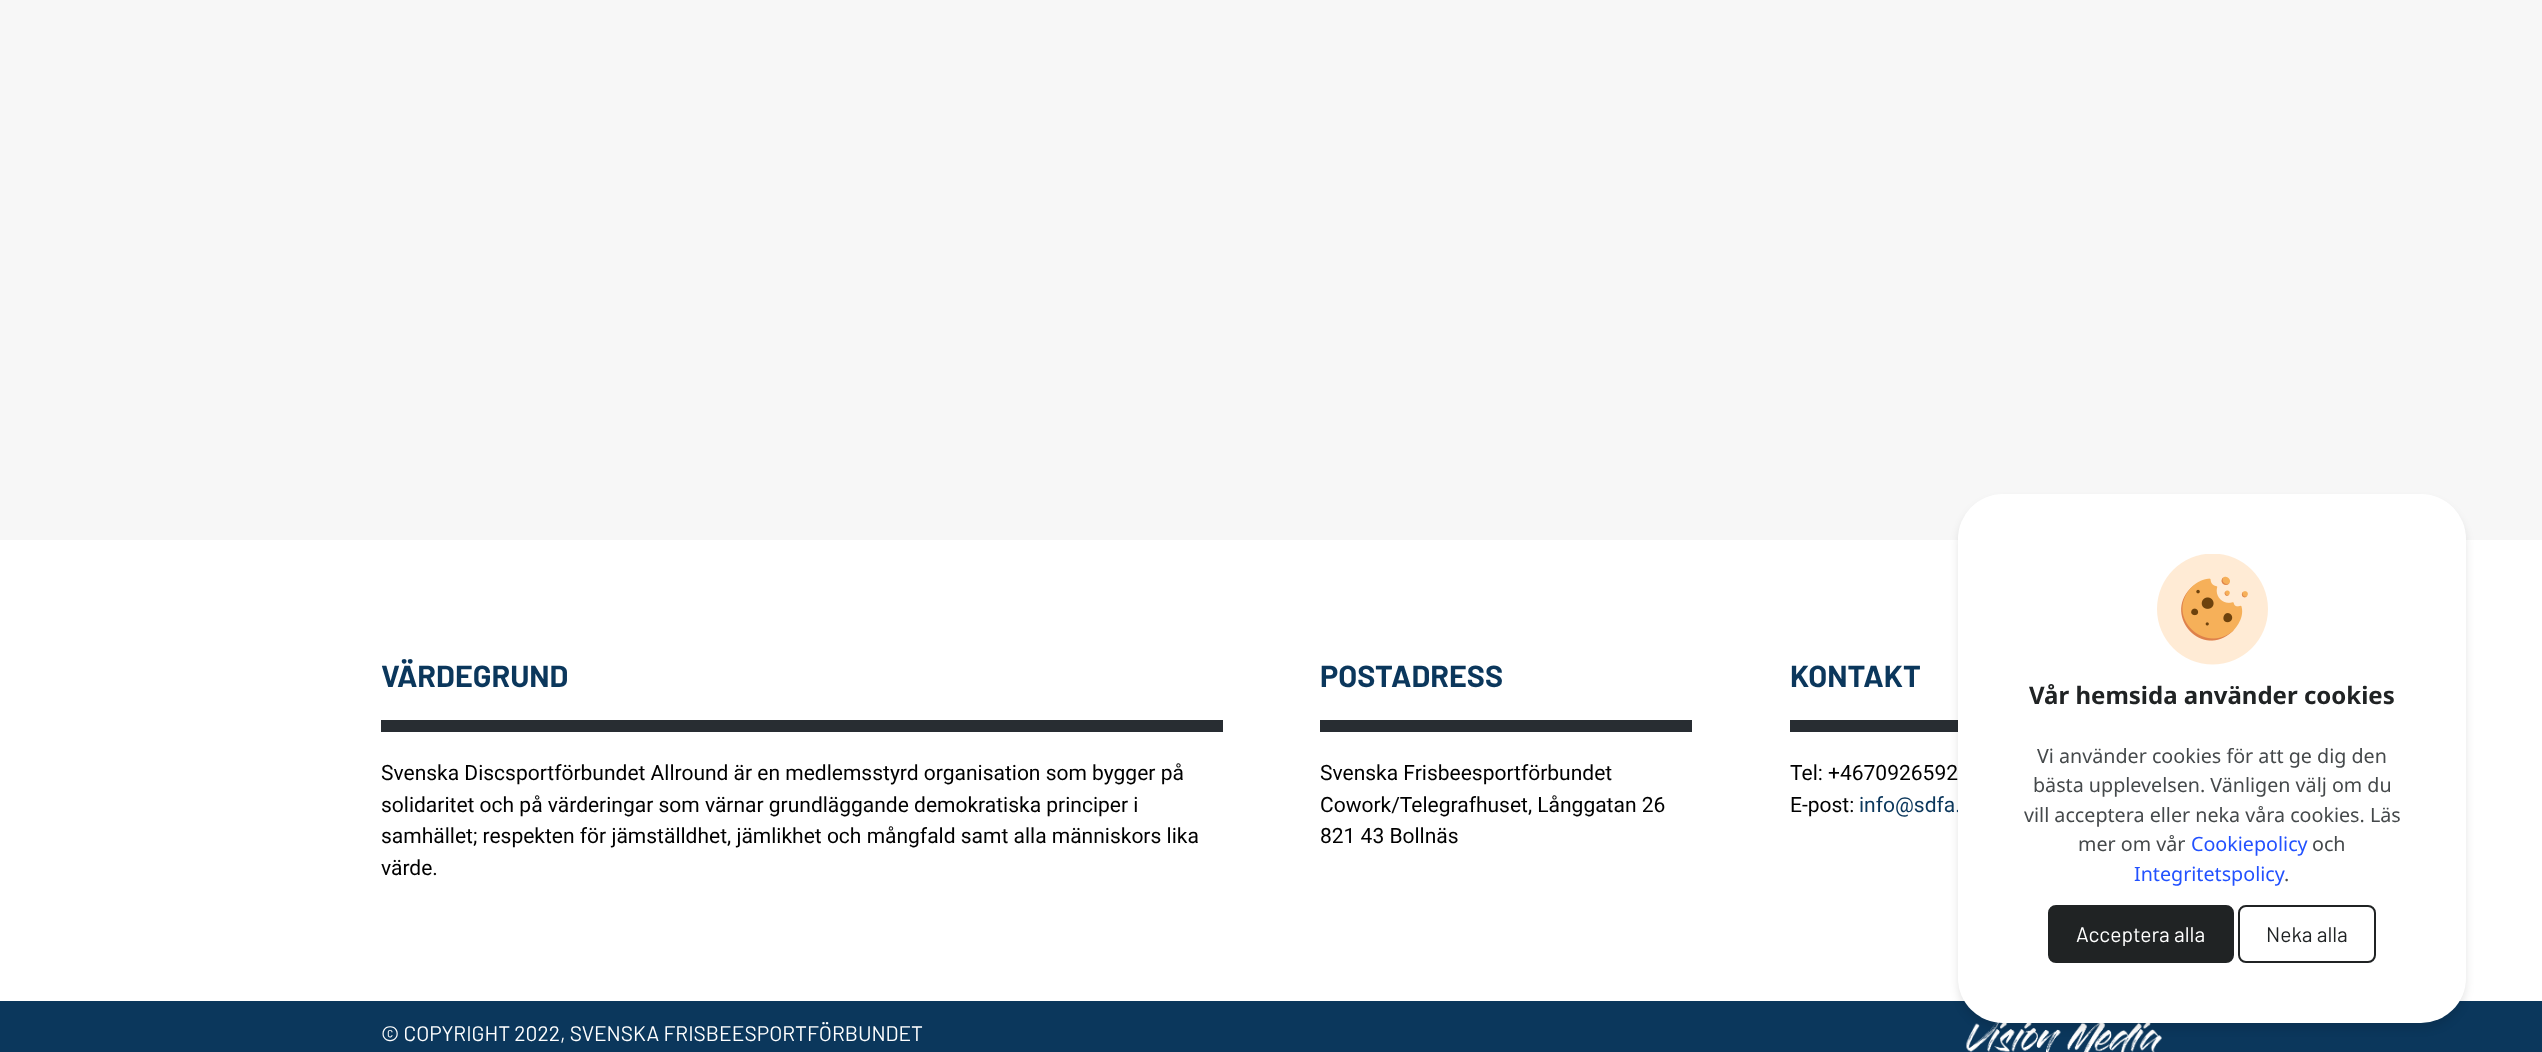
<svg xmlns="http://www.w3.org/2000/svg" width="2542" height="1052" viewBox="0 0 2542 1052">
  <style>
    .t1 { font: bold 30.5px Barlow; fill: #0b375c; }
    .t2 { font: 21px Roboto; fill: #000; }
    .t3 { font: 21px Roboto; fill: #0b375c; }
    .t4 { font: 21px Barlow; fill: #fff; }
    .t5 { font: bold 24px Noto Sans; fill: #202324; }
    .t6 { font: 19.7px Noto Sans; fill: #45494b; }
    .t7 { font: 19.7px Noto Sans; fill: #2251ff; }
    .t8 { font: 21px Barlow; fill: #202324; }
  </style>
  <rect width="100%" height="100%" fill="#fff"/>
  <rect x="0" y="0" width="2542" height="540" fill="#f7f7f7"/>
  <text x="381" y="687" class="t1">VÄRDEGRUND</text>
  <rect x="381" y="720" width="842" height="12" fill="#282d32"/>
  <text x="381" y="780" class="t2">Svenska Discsportförbundet Allround är en medlemsstyrd organisation som bygger på</text>
  <text x="381" y="812" class="t2">solidaritet och på värderingar som värnar grundläggande demokratiska principer i</text>
  <text x="381" y="843" class="t2">samhället; respekten för jämställdhet, jämlikhet och mångfald samt alla människors lika</text>
  <text x="381" y="875" class="t2">värde.</text>
  <text x="1320" y="687" class="t1">POSTADRESS</text>
  <rect x="1320" y="720" width="372" height="12" fill="#282d32"/>
  <text x="1320" y="780" class="t2">Svenska Frisbeesportförbundet</text>
  <text x="1320" y="812" class="t2">Cowork/Telegrafhuset, Långgatan 26</text>
  <text x="1320" y="843" class="t2">821 43 Bollnäs</text>
  <text x="1790" y="687" class="t1">KONTAKT</text>
  <rect x="1790" y="720" width="168" height="12" fill="#282d32"/>
  <text x="1790" y="780" class="t2">Tel: +4670926592</text>
  <text x="1790" y="812" class="t2">E-post:</text>
  <text x="1859" y="812" class="t3">info@sdfa.</text>
  <rect x="0" y="1001" width="2542" height="51" fill="#0b375c"/>
  <text x="381" y="1041" class="t4">© COPYRIGHT 2022, SVENSKA FRISBEESPORTFÖRBUNDET</text>
  <image x="1966" y="1022" width="196" height="30" href="images/1.png"/>
  <rect x="1958" y="500" width="508" height="529" rx="45" fill="#0000001a" filter="blur(4.5px)"/>
  <rect x="1958" y="494" width="508" height="529" rx="45" fill="#fff"/>
  <image x="2157" y="554" width="111" height="111" href="images/2.png"/>
  <text x="2029" y="704" class="t5">Vår hemsida använder cookies</text>
  <text x="2037" y="763" class="t6">Vi använder cookies för att ge dig den</text>
  <text x="2033" y="792" class="t6">bästa upplevelsen. Vänligen välj om du</text>
  <text x="2024" y="822" class="t6">vill acceptera eller neka våra cookies. Läs</text>
  <text x="2078" y="851" class="t6">mer om vår</text>
  <text x="2191" y="851" class="t7">Cookiepolicy</text>
  <text x="2312" y="851" class="t6">och</text>
  <text x="2134" y="881" class="t7">Integritetspolicy</text>
  <text x="2284" y="881" class="t6">.</text>
  <rect x="2049" y="906" width="184" height="56" rx="7" fill="#202324" stroke="#202324" stroke-width="2"/>
  <text x="2076" y="942" class="t4">Acceptera alla</text>
  <rect x="2239" y="906" width="136" height="56" rx="7" fill="none" stroke="#202324" stroke-width="2"/>
  <text x="2266" y="942" class="t8">Neka alla</text>
</svg>
